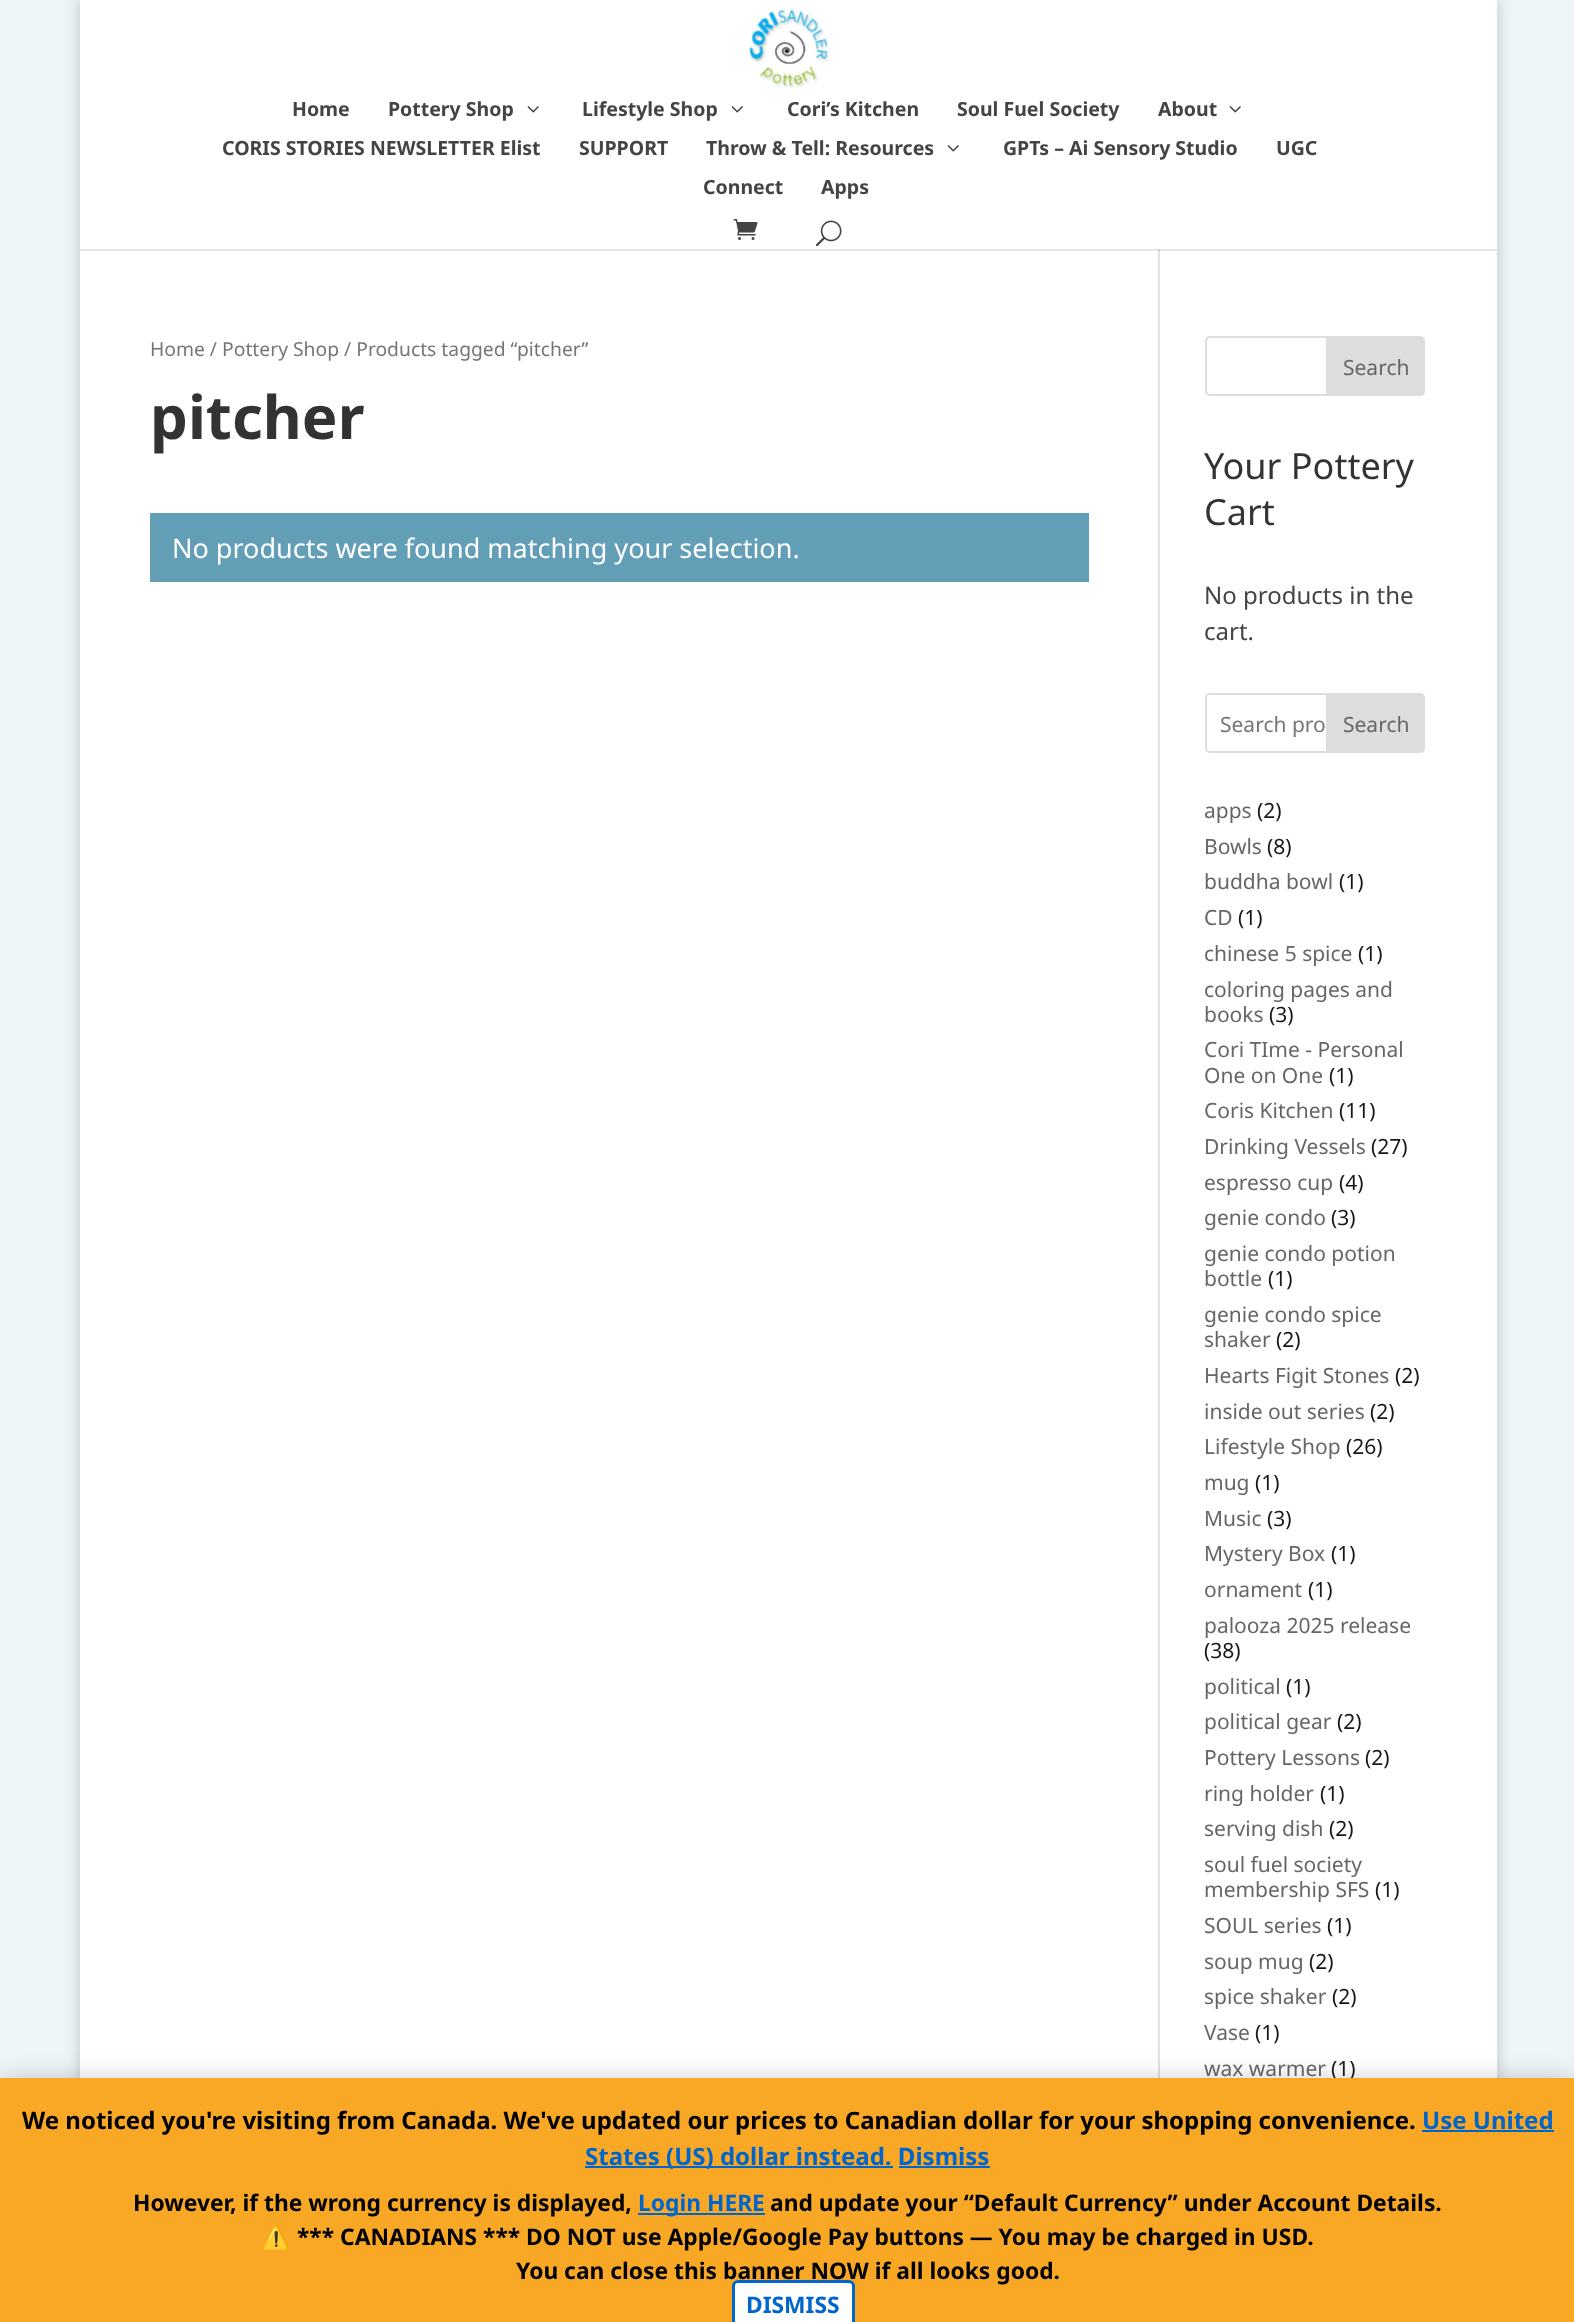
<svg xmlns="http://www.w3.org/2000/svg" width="1574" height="2322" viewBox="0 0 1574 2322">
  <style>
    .t1 { font: bold 19.5px Noto Sans; fill: #444; }
    .t2 { font: 19.3px Noto Sans; fill: #767676; }
    .t3 { font: bold 60px Noto Sans; fill: #333; }
    .t4 { font: 27px Noto Sans; fill: #fff; }
    .t5 { font: 21px Noto Sans; fill: #666; }
    .t6 { font: 36px Noto Sans; fill: #333; }
    .t7 { font: 24px Noto Sans; fill: #444; }
    .t8 { font: 21px Noto Sans; fill: #767676; }
    .t9 { font: 21px Noto Sans; fill: #171717; }
    .t10 { font: bold 24px Noto Sans; fill: #000; }
    .t11 { font: bold 24px Noto Sans; fill: #06c; }
    .t12 { font: bold 22.8px Noto Sans; fill: #000; }
    .t13 { font: bold 22.8px Noto Sans; fill: #06c; }
    .t14 { font: bold 22.8px Noto Color Emoji; fill: #000; }
  </style>
  <rect width="100%" height="100%" fill="#edf5f7"/>
  <rect x="80" y="0" width="1417" height="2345" fill="#00000033" filter="blur(7.5px)"/>
  <rect x="80" y="0" width="1417" height="249" fill="#fff"/>
  <image x="749" y="9" width="80" height="79" href="images/1.png"/>
  <text x="292" y="116" class="t1">Home</text>
  <text x="388" y="116" class="t1">Pottery Shop</text>
  <image x="527" y="106" width="12" height="7" href="images/2.png"/>
  <text x="582" y="116" class="t1">Lifestyle Shop</text>
  <image x="731" y="106" width="12" height="7" href="images/2.png"/>
  <text x="787" y="116" class="t1">Cori’s Kitchen</text>
  <text x="957" y="116" class="t1">Soul Fuel Society</text>
  <text x="1158" y="116" class="t1">About</text>
  <image x="1229" y="106" width="12" height="7" href="images/2.png"/>
  <text x="222" y="155" class="t1">CORIS STORIES NEWSLETTER Elist</text>
  <text x="579" y="155" class="t1">SUPPORT</text>
  <text x="706" y="155" class="t1">Throw &amp; Tell: Resources</text>
  <image x="947" y="145" width="12" height="7" href="images/2.png"/>
  <text x="1003" y="155" class="t1">GPTs – Ai Sensory Studio</text>
  <text x="1276" y="155" class="t1">UGC</text>
  <text x="703" y="194" class="t1">Connect</text>
  <text x="821" y="194" class="t1">Apps</text>
  <image x="733" y="219" width="25" height="21" href="images/3.png"/>
  <image x="815" y="220" width="27" height="27" href="images/4.png"/>
  <rect x="80" y="251" width="1417" height="1827" fill="#fff"/>
  <rect x="80" y="249" width="1417" height="2" fill="#e6e6e6"/>
  <rect x="1158" y="249" width="2" height="1829" fill="#e2e2e2"/>
  <rect x="1158" y="249" width="2" height="2" fill="#cbcbcb"/>
  <text x="150" y="356" class="t2">Home / Pottery Shop / Products tagged “pitcher”</text>
  <text x="150" y="439" class="t3">pitcher</text>
  <rect x="150" y="513" width="939" height="69" fill="#639eb7"/>
  <text x="172" y="558" class="t4">No products were found matching your selection.</text>
  <rect x="1206" y="337" width="218" height="58" rx="4" fill="none" stroke="#ddd" stroke-width="2"/>
  <path d="M1327 337H1420C1422 337 1424 339 1424 341V391C1424 393 1422 395 1420 395H1327Z" fill="#ddd" stroke="#ddd" stroke-width="2"/>
  <text x="1343" y="375" class="t5">Search</text>
  <text x="1204" y="479" class="t6">Your Pottery</text>
  <text x="1204" y="525" class="t6">Cart</text>
  <text x="1204" y="604" class="t7">No products in the</text>
  <text x="1204" y="640" class="t7">cart.</text>
  <rect x="1206" y="694" width="218" height="58" rx="4" fill="none" stroke="#ddd" stroke-width="2"/>
  <text x="1220" y="732" class="t8">Search pro</text>
  <path d="M1327 694H1420C1422 694 1424 696 1424 698V748C1424 750 1422 752 1420 752H1327Z" fill="#ddd" stroke="#ddd" stroke-width="2"/>
  <text x="1343" y="732" class="t5">Search</text>
  <text x="1204" y="818" class="t5">apps</text>
  <text x="1257" y="818" class="t9">(2)</text>
  <text x="1204" y="854" class="t5">Bowls</text>
  <text x="1267" y="854" class="t9">(8)</text>
  <text x="1204" y="889" class="t5">buddha bowl</text>
  <text x="1339" y="889" class="t9">(1)</text>
  <text x="1204" y="925" class="t5">CD</text>
  <text x="1238" y="925" class="t9">(1)</text>
  <text x="1204" y="961" class="t5">chinese 5 spice</text>
  <text x="1358" y="961" class="t9">(1)</text>
  <text x="1204" y="997" class="t5">coloring pages and</text>
  <text x="1204" y="1022" class="t5">books</text>
  <text x="1269" y="1022" class="t9">(3)</text>
  <text x="1204" y="1057" class="t5">Cori TIme - Personal</text>
  <text x="1204" y="1083" class="t5">One on One</text>
  <text x="1329" y="1083" class="t9">(1)</text>
  <text x="1204" y="1118" class="t5">Coris Kitchen</text>
  <text x="1339" y="1118" class="t9">(11)</text>
  <text x="1204" y="1154" class="t5">Drinking Vessels</text>
  <text x="1371" y="1154" class="t9">(27)</text>
  <text x="1204" y="1190" class="t5">espresso cup</text>
  <text x="1339" y="1190" class="t9">(4)</text>
  <text x="1204" y="1225" class="t5">genie condo</text>
  <text x="1331" y="1225" class="t9">(3)</text>
  <text x="1204" y="1261" class="t5">genie condo potion</text>
  <text x="1204" y="1286" class="t5">bottle</text>
  <text x="1268" y="1286" class="t9">(1)</text>
  <text x="1204" y="1322" class="t5">genie condo spice</text>
  <text x="1204" y="1347" class="t5">shaker</text>
  <text x="1276" y="1347" class="t9">(2)</text>
  <text x="1204" y="1383" class="t5">Hearts Figit Stones</text>
  <text x="1395" y="1383" class="t9">(2)</text>
  <text x="1204" y="1419" class="t5">inside out series</text>
  <text x="1370" y="1419" class="t9">(2)</text>
  <text x="1204" y="1454" class="t5">Lifestyle Shop</text>
  <text x="1346" y="1454" class="t9">(26)</text>
  <text x="1204" y="1490" class="t5">mug</text>
  <text x="1255" y="1490" class="t9">(1)</text>
  <text x="1204" y="1526" class="t5">Music</text>
  <text x="1267" y="1526" class="t9">(3)</text>
  <text x="1204" y="1561" class="t5">Mystery Box</text>
  <text x="1331" y="1561" class="t9">(1)</text>
  <text x="1204" y="1597" class="t5">ornament</text>
  <text x="1308" y="1597" class="t9">(1)</text>
  <text x="1204" y="1633" class="t5">palooza 2025 release</text>
  <text x="1204" y="1658" class="t9">(38)</text>
  <text x="1204" y="1694" class="t5">political</text>
  <text x="1286" y="1694" class="t9">(1)</text>
  <text x="1204" y="1729" class="t5">political gear</text>
  <text x="1337" y="1729" class="t9">(2)</text>
  <text x="1204" y="1765" class="t5">Pottery Lessons</text>
  <text x="1365" y="1765" class="t9">(2)</text>
  <text x="1204" y="1801" class="t5">ring holder</text>
  <text x="1320" y="1801" class="t9">(1)</text>
  <text x="1204" y="1836" class="t5">serving dish</text>
  <text x="1329" y="1836" class="t9">(2)</text>
  <text x="1204" y="1872" class="t5">soul fuel society</text>
  <text x="1204" y="1897" class="t5">membership SFS</text>
  <text x="1375" y="1897" class="t9">(1)</text>
  <text x="1204" y="1933" class="t5">SOUL series</text>
  <text x="1327" y="1933" class="t9">(1)</text>
  <text x="1204" y="1969" class="t5">soup mug</text>
  <text x="1309" y="1969" class="t9">(2)</text>
  <text x="1204" y="2004" class="t5">spice shaker</text>
  <text x="1332" y="2004" class="t9">(2)</text>
  <text x="1204" y="2040" class="t5">Vase</text>
  <text x="1255" y="2040" class="t9">(1)</text>
  <text x="1204" y="2076" class="t5">wax warmer</text>
  <text x="1331" y="2076" class="t9">(1)</text>
  <rect x="0" y="2079" width="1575" height="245" fill="#00000033" filter="blur(12px)"/>
  <rect x="0" y="2078" width="1574" height="244" fill="#f9a825"/>
  <text x="22" y="2129" class="t10">We noticed you're visiting from Canada. We've updated our prices to Canadian dollar for your shopping convenience.</text>
  <text x="1422" y="2129" class="t11">Use United</text>
  <rect x="1422" y="2130" width="132" height="2" fill="#06c"/>
  <rect x="585" y="2166" width="308" height="2" fill="#06c"/>
  <text x="585" y="2165" class="t11">States (US) dollar instead. Dismiss</text>
  <rect x="899" y="2166" width="91" height="2" fill="#06c"/>
  <text x="133" y="2211" class="t12">However, if the wrong currency is displayed,</text>
  <rect x="638" y="2213" width="127" height="2" fill="#06c"/>
  <text x="638" y="2211" class="t13">Login HERE</text>
  <text x="770" y="2211" class="t12">and update your “Default Currency” under Account Details.</text>
  <text x="262" y="2245" class="t14">⚠️</text>
  <text x="297" y="2245" class="t12">*** CANADIANS *** DO NOT use Apple/Google Pay buttons — You may be charged in USD.</text>
  <text x="516" y="2279" class="t12">You can close this banner NOW if all looks good.</text>
  <rect x="733.5" y="2281.5" width="120" height="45" rx="4.5" fill="#fff" stroke="#06c" stroke-width="3"/>
  <text x="746" y="2313" class="t13">DISMISS</text>
</svg>
